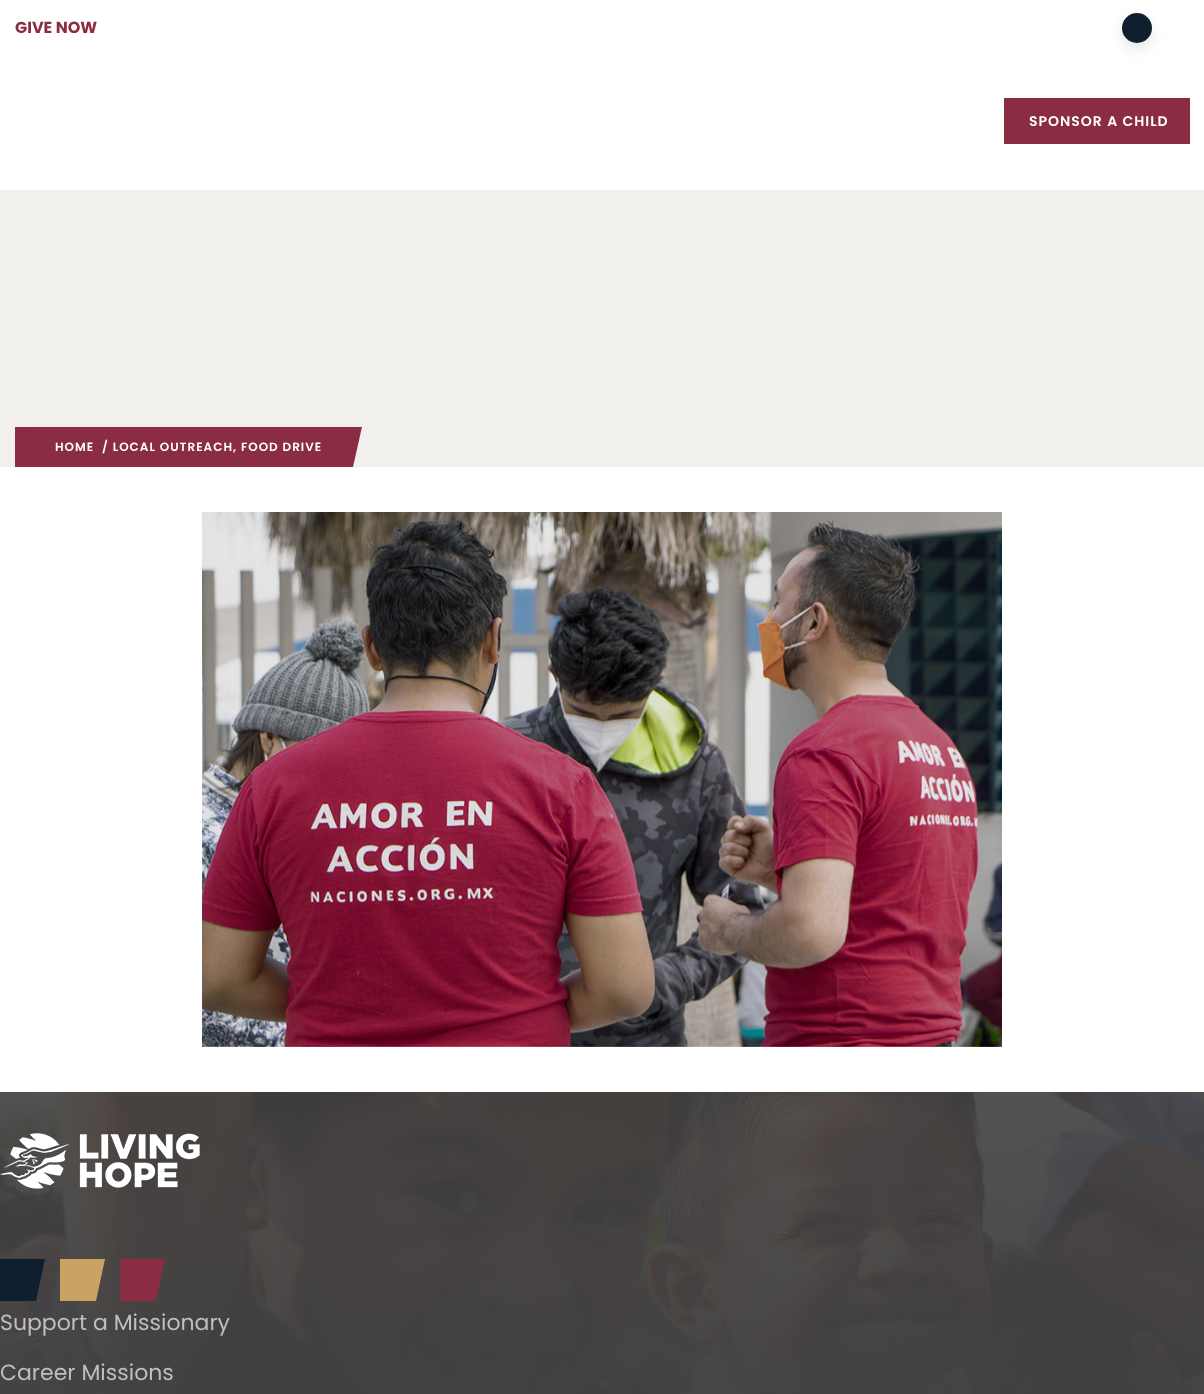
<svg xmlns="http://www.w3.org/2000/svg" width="1204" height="1394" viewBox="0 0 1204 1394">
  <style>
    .t1 { font: bold 16px Poppins; fill: #8a2d43; }
    .t2 { font: 600 14px Poppins; letter-spacing: 1px; fill: #fff; }
    .t3 { font: 600 12px Poppins; letter-spacing: 1px; fill: #fff; }
    .t4 { font: 22px Poppins; fill: #bfbfbf; }
  </style>
  <rect width="100%" height="100%" fill="#fff"/>
  <text x="15" y="33" class="t1">GIVE NOW</text>
  <rect x="1122" y="19" width="30" height="30" rx="15" fill="#0000001a" filter="blur(7px)"/>
  <circle cx="1137" cy="28" r="15" fill="#101f2f"/>
  <rect x="1004" y="98" width="186" height="46" fill="#8a2d43"/>
  <text x="1029" y="126" class="t2">SPONSOR A CHILD</text>
  <rect x="0" y="190" width="1204" height="277" fill="#f2f0ec"/>
  <rect x="15" y="427" width="10" height="40" fill="#8a2d43"/>
  <path d="M25 427H362L353 467H16Z" fill="#8a2d43"/>
  <text x="55" y="451" class="t3">HOME</text>
  <text x="102" y="451" class="t3">/ LOCAL OUTREACH, FOOD DRIVE</text>
  <image x="202" y="512" width="800" height="535" href="images/1.png"/>
  <image x="0" y="1092" width="1204" height="302" href="images/2.png"/>
  <image x="0" y="1133" width="200" height="56" href="images/3.png"/>
  <rect x="0" y="1259" width="10" height="42" fill="#101f2f"/>
  <path d="M10 1259H45L36 1301H1Z" fill="#101f2f"/>
  <rect x="60" y="1259" width="10" height="42" fill="#c9a362"/>
  <path d="M70 1259H105L96 1301H61Z" fill="#c9a362"/>
  <rect x="120" y="1259" width="10" height="42" fill="#8a2d43"/>
  <path d="M130 1259H165L156 1301H121Z" fill="#8a2d43"/>
  <text x="0" y="1330" class="t4">Support a Missionary</text>
  <text x="0" y="1380" class="t4">Career Missions</text>
</svg>
